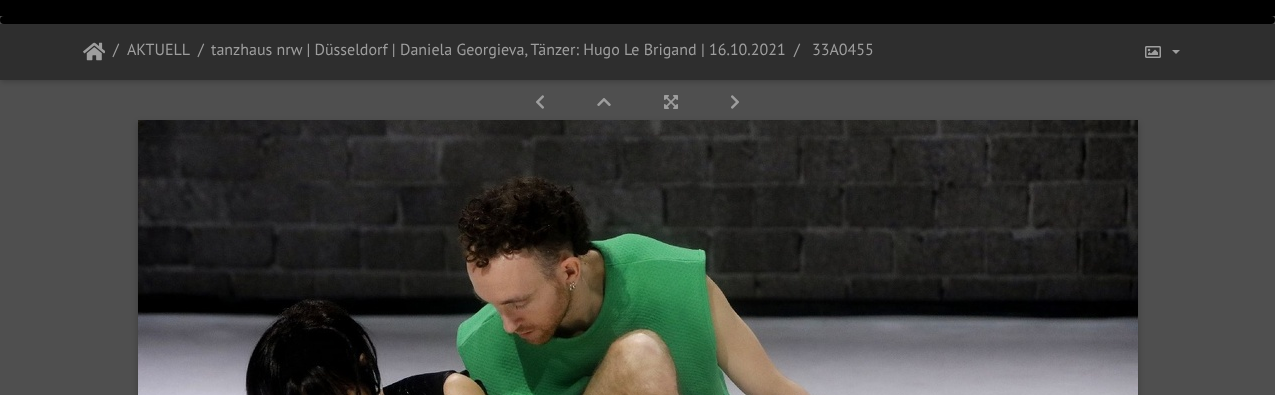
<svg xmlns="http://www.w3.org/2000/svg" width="1275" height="395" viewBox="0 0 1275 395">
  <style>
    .t1 { font: 16px PT Sans; fill: #9e9e9e; }
  </style>
  <rect width="100%" height="100%" fill="#4f4f4f"/>
  <rect x="0" y="0" width="1275" height="16" fill="#000"/>
  <rect x="0" y="16" width="1275" height="8" rx="4" fill="#000"/>
  <rect x="1" y="28" width="1273" height="54" fill="#00000033" filter="blur(2.5px)"/>
  <rect x="0" y="24" width="1275" height="56" fill="#2e2e2e"/>
  <image x="83" y="42" width="22" height="19" href="images/1.png"/>
  <text x="113" y="55" class="t1">/</text>
  <text x="127" y="55" class="t1">AKTUELL</text>
  <text x="198" y="55" class="t1">/</text>
  <text x="211" y="55" class="t1">tanzhaus nrw | Düsseldorf | Daniela Georgieva, Tänzer: Hugo Le Brigand | 16.10.2021</text>
  <text x="794" y="55" class="t1">/</text>
  <text x="812" y="55" class="t1">33A0455</text>
  <image x="1145" y="46" width="16" height="12" href="images/2.png"/>
  <path d="M1172 50H1180L1176 54Z" fill="#9e9e9e"/>
  <image x="536" y="95" width="8" height="14" href="images/3.png"/>
  <image x="597" y="98" width="14" height="8" href="images/4.png"/>
  <image x="664" y="95" width="14" height="14" href="images/5.png"/>
  <image x="731" y="95" width="8" height="14" href="images/6.png"/>
  <rect x="138" y="123" width="1000" height="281" fill="#0000003b" filter="blur(3px)"/>
  <image x="138" y="120" width="1000" height="275" href="images/7.png"/>
</svg>
